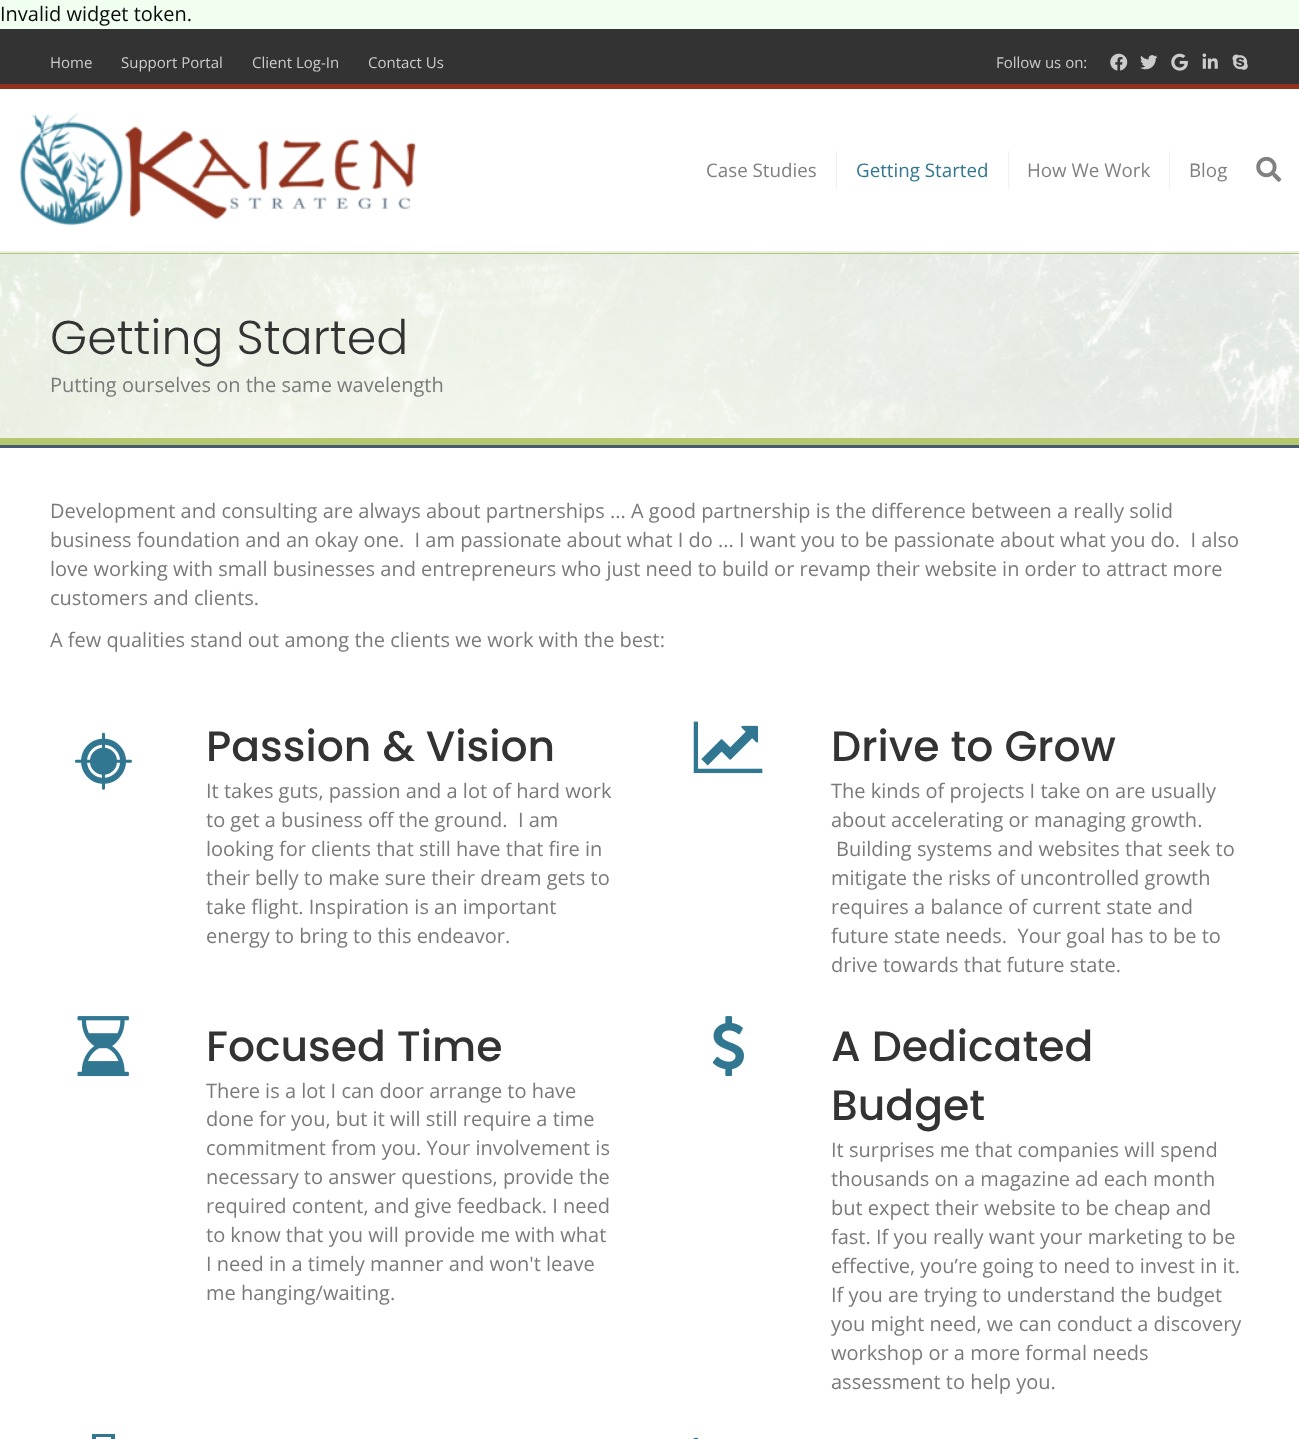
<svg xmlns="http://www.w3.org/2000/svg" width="1299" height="1439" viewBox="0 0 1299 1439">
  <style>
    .t1 { font: 20px Open Sans; fill: #0a0a0a; }
    .t2 { font: 15px Open Sans; fill: #ccc; }
    .t3 { font: 18.75px Open Sans; fill: #808080; }
    .t4 { font: 18.75px Open Sans; fill: #317791; }
    .t5 { font: 300 47.5px Poppins; fill: #333; }
    .t6 { font: 20px Open Sans; fill: #7a7a7a; }
    .t7 { font: 500 42.5px Poppins; fill: #333; }
  </style>
  <rect width="100%" height="100%" fill="#333"/>
  <rect x="0" y="0" width="1299" height="29" fill="#f0fff0"/>
  <text x="0" y="21" class="t1">Invalid widget token.</text>
  <rect x="0" y="84" width="1299" height="5" fill="#91321f"/>
  <text x="50" y="68" class="t2">Home</text>
  <text x="121" y="68" class="t2">Support Portal</text>
  <text x="252" y="68" class="t2">Client Log-In</text>
  <text x="368" y="68" class="t2">Contact Us</text>
  <text x="996" y="68" class="t2">Follow us on:</text>
  <image x="1110" y="53" width="18" height="18" href="images/1.png"/>
  <image x="1140" y="55" width="18" height="15" href="images/2.png"/>
  <image x="1171" y="53" width="17" height="18" href="images/3.png"/>
  <image x="1202" y="53" width="16" height="16" href="images/4.png"/>
  <image x="1232" y="54" width="16" height="16" href="images/5.png"/>
  <rect x="0" y="89" width="1299" height="162" fill="#fff"/>
  <rect x="0" y="251" width="1299" height="1" fill="#eee"/>
  <image x="19" y="112" width="397" height="114" href="images/6.png"/>
  <rect x="836" y="151" width="1" height="39" fill="#f2f2f2"/>
  <text x="706" y="177" class="t3">Case Studies</text>
  <rect x="1008" y="151" width="1" height="39" fill="#f2f2f2"/>
  <text x="856" y="177" class="t4">Getting Started</text>
  <rect x="1169" y="151" width="1" height="39" fill="#f2f2f2"/>
  <text x="1027" y="177" class="t3">How We Work</text>
  <text x="1189" y="177" class="t3">Blog</text>
  <image x="1256" y="156" width="26" height="26" href="images/7.png"/>
  <rect x="0" y="448" width="1299" height="991" fill="#fff"/>
  <image x="0" y="252" width="1299" height="186" href="images/8.png"/>
  <rect x="0" y="253" width="1299" height="1" fill="#b5c76f"/>
  <rect x="0" y="438" width="1299" height="7" fill="#b5c76f"/>
  <text x="50" y="354" class="t5">Getting Started</text>
  <text x="50" y="392" class="t6">Putting ourselves on the same wavelength</text>
  <rect x="0" y="445" width="1299" height="3" fill="#465b72"/>
  <text x="50" y="518" class="t6">Development and consulting are always about partnerships ... A good partnership is the difference between a really solid</text>
  <text x="50" y="547" class="t6" xml:space="preserve">business foundation and an okay one.  I am passionate about what I do ... I want you to be passionate about what you do.  I also</text>
  <text x="50" y="576" class="t6">love working with small businesses and entrepreneurs who just need to build or revamp their website in order to attract more</text>
  <text x="50" y="605" class="t6">customers and clients.</text>
  <text x="50" y="647" class="t6">A few qualities stand out among the clients we work with the best:</text>
  <image x="75" y="732" width="57" height="58" href="images/9.png"/>
  <text x="206" y="761" class="t7">Passion &amp; Vision</text>
  <text x="206" y="798" class="t6">It takes guts, passion and a lot of hard work</text>
  <text x="206" y="827" class="t6" xml:space="preserve">to get a business off the ground.  I am</text>
  <text x="206" y="856" class="t6">looking for clients that still have that fire in</text>
  <text x="206" y="885" class="t6">their belly to make sure their dream gets to</text>
  <text x="206" y="914" class="t6">take flight. Inspiration is an important</text>
  <text x="206" y="943" class="t6">energy to bring to this endeavor.</text>
  <image x="693" y="721" width="70" height="53" href="images/10.png"/>
  <text x="831" y="761" class="t7">Drive to Grow</text>
  <text x="831" y="798" class="t6">The kinds of projects I take on are usually</text>
  <text x="831" y="827" class="t6">about accelerating or managing growth.</text>
  <text x="836" y="856" class="t6">Building systems and websites that seek to</text>
  <text x="831" y="885" class="t6">mitigate the risks of uncontrolled growth</text>
  <text x="831" y="914" class="t6">requires a balance of current state and</text>
  <text x="831" y="943" class="t6" xml:space="preserve">future state needs.  Your goal has to be to</text>
  <text x="831" y="972" class="t6">drive towards that future state.</text>
  <image x="77" y="1016" width="52" height="61" href="images/11.png"/>
  <text x="206" y="1061" class="t7">Focused Time</text>
  <text x="206" y="1098" class="t6">There is a lot I can door arrange to have</text>
  <text x="206" y="1126" class="t6">done for you, but it will still require a time</text>
  <text x="206" y="1155" class="t6">commitment from you. Your involvement is</text>
  <text x="206" y="1184" class="t6">necessary to answer questions, provide the</text>
  <text x="206" y="1213" class="t6">required content, and give feedback. I need</text>
  <text x="206" y="1242" class="t6">to know that you will provide me with what</text>
  <text x="206" y="1271" class="t6">I need in a timely manner and won't leave</text>
  <text x="206" y="1300" class="t6">me hanging/waiting.</text>
  <image x="712" y="1016" width="32" height="61" href="images/12.png"/>
  <text x="831" y="1061" class="t7">A Dedicated</text>
  <text x="831" y="1120" class="t7">Budget</text>
  <text x="831" y="1157" class="t6">It surprises me that companies will spend</text>
  <text x="831" y="1186" class="t6">thousands on a magazine ad each month</text>
  <text x="831" y="1215" class="t6">but expect their website to be cheap and</text>
  <text x="831" y="1244" class="t6">fast. If you really want your marketing to be</text>
  <text x="831" y="1273" class="t6">effective, you’re going to need to invest in it.</text>
  <text x="831" y="1302" class="t6">If you are trying to understand the budget</text>
  <text x="831" y="1331" class="t6">you might need, we can conduct a discovery</text>
  <text x="831" y="1360" class="t6">workshop or a more formal needs</text>
  <text x="831" y="1389" class="t6">assessment to help you.</text>
  <path d="M96 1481H111V1437H96ZM92 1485V1434H115V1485Z" fill="#317791"/>
  <image x="693" y="1437" width="6" height="2" href="images/13.png"/>
</svg>
